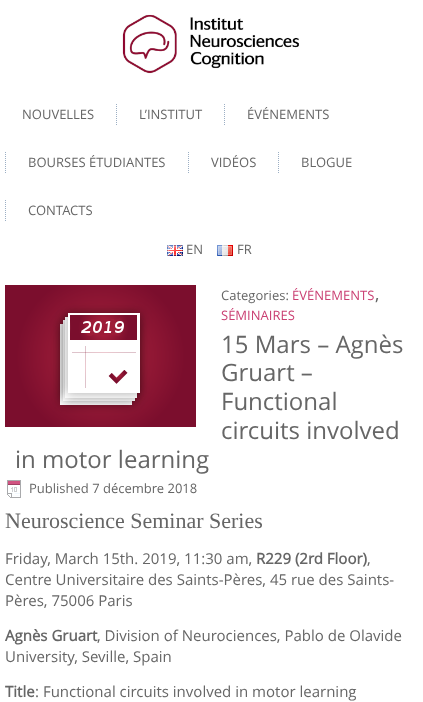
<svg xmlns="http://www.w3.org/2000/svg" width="423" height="702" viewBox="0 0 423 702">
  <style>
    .t1 { font: 13px Open Sans; fill: #666; }
    .t2 { font: 13px Open Sans; fill: #ca3f72; }
    .t3 { font: 18px Open Sans; fill: #666; }
    .t4 { font: 24px Open Sans; fill: #666; }
    .t5 { font: 22px Liberation Serif; fill: #666; }
    .t6 { font: 15px Open Sans; fill: #666; }
    .t7 { font: bold 15px Open Sans; fill: #666; }
  </style>
  <rect width="100%" height="100%" fill="#fff"/>
  <image x="122" y="14" width="178" height="60" href="images/1.png"/>
  <text x="22" y="119" class="t1">NOUVELLES</text>
  <image x="116" y="104" width="1" height="21" href="images/2.png"/>
  <text x="139" y="119" class="t1">L’INSTITUT</text>
  <image x="224" y="104" width="1" height="21" href="images/2.png"/>
  <text x="247" y="119" class="t1">ÉVÉNEMENTS</text>
  <image x="5" y="152" width="1" height="21" href="images/2.png"/>
  <text x="28" y="167" class="t1">BOURSES ÉTUDIANTES</text>
  <image x="188" y="152" width="1" height="21" href="images/2.png"/>
  <text x="211" y="167" class="t1">VIDÉOS</text>
  <image x="278" y="152" width="1" height="21" href="images/2.png"/>
  <text x="301" y="167" class="t1">BLOGUE</text>
  <image x="5" y="200" width="1" height="21" href="images/2.png"/>
  <text x="28" y="215" class="t1">CONTACTS</text>
  <image x="167" y="245" width="16" height="11" href="images/3.png"/>
  <text x="186" y="254" class="t1">EN</text>
  <image x="217" y="245" width="16" height="11" href="images/4.png"/>
  <text x="237" y="254" class="t1">FR</text>
  <image x="5" y="285" width="191" height="142" href="images/5.png"/>
  <text x="221" y="300" class="t1">Categories:</text>
  <text x="292" y="300" class="t2">ÉVÉNEMENTS</text>
  <text x="375" y="300" class="t3">,</text>
  <text x="221" y="320" class="t2">SÉMINAIRES</text>
  <text x="221" y="353" class="t4">15 Mars – Agnès</text>
  <text x="221" y="381" class="t4">Gruart –</text>
  <text x="221" y="410" class="t4">Functional</text>
  <text x="221" y="439" class="t4">circuits involved</text>
  <text x="15" y="468" class="t4">in motor learning</text>
  <image x="7" y="480" width="14" height="18" href="images/6.png"/>
  <text x="29" y="493" class="t1">Published 7 décembre 2018</text>
  <text x="5" y="528" class="t5">Neuroscience Seminar Series</text>
  <text x="5" y="564" class="t6">Friday, March 15th. 2019, 11:30 am,</text>
  <text x="256" y="564" class="t7">R229 (2rd Floor)</text>
  <text x="367" y="564" class="t6">,</text>
  <text x="5" y="585" class="t6">Centre Universitaire des Saints-Pères, 45 rue des Saints-</text>
  <text x="5" y="606" class="t6">Pères, 75006 Paris</text>
  <text x="5" y="641" class="t7">Agnès Gruart</text>
  <text x="97" y="641" class="t6">, Division of Neurociences, Pablo de Olavide</text>
  <text x="5" y="662" class="t6">University, Seville, Spain</text>
  <text x="5" y="697" class="t7">Title</text>
  <text x="35" y="697" class="t6">: Functional circuits involved in motor learning</text>
</svg>
